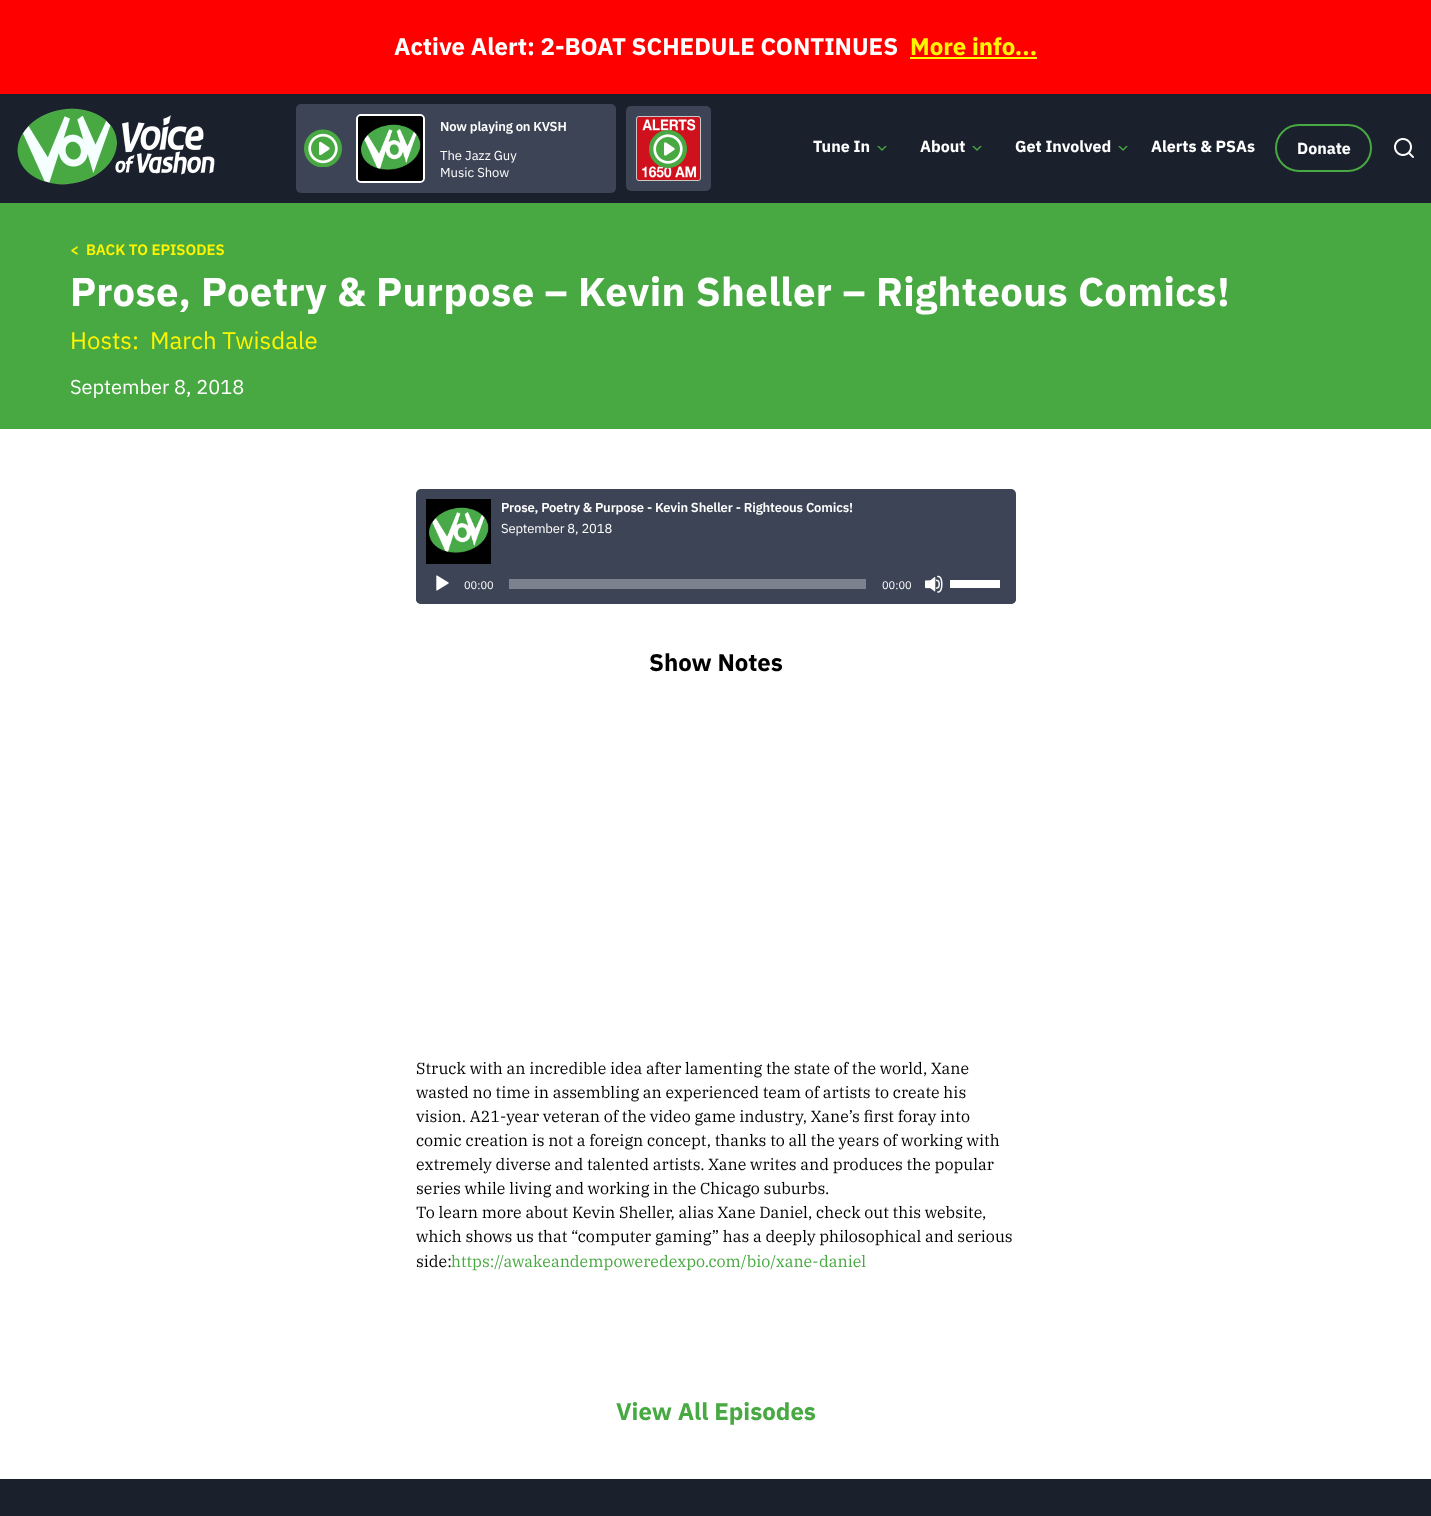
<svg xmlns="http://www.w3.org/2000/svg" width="1431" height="1516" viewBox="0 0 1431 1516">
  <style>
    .t1 { font: bold 24px IBM Plex Sans; fill: #fff; }
    .t2 { font: bold 24px IBM Plex Sans; fill: #fff500; }
    .t3 { font: 600 13px IBM Plex Sans; letter-spacing: -0.13px; fill: #fff; }
    .t4 { font: 13px IBM Plex Sans; fill: #fff; }
    .t5 { font: bold 16px IBM Plex Sans; fill: #fff; }
    .t6 { font: 600 15px IBM Plex Sans; fill: #fff500; }
    .t7 { font: bold 40px IBM Plex Sans; letter-spacing: 0.4px; fill: #fff; }
    .t8 { font: 24px IBM Plex Sans; fill: #fff500; }
    .t9 { font: 20px IBM Plex Sans; fill: #fff; }
    .t10 { font: 13px IBM Plex Sans; letter-spacing: -0.13px; fill: #fff; }
    .t11 { font: 11px IBM Plex Sans; fill: #fff; }
    .t12 { font: bold 24px IBM Plex Sans; fill: #000; }
    .t13 { font: 16px IBM Plex Serif; fill: #000; }
    .t14 { font: 16px IBM Plex Serif; fill: #48a942; }
    .t15 { font: bold 24px IBM Plex Sans; fill: #48a942; }
  </style>
  <rect width="100%" height="100%" fill="#fff"/>
  <rect x="0" y="0" width="1431" height="94" fill="#f00"/>
  <text x="394" y="55" class="t1">Active Alert: 2-BOAT SCHEDULE CONTINUES</text>
  <text x="910" y="55" class="t2">More info...</text>
  <rect x="910" y="57" width="127" height="2" fill="#fff500"/>
  <rect x="0" y="94" width="1431" height="109" fill="#1a202c"/>
  <image x="17" y="108" width="198" height="77" href="images/1.png"/>
  <rect x="296" y="104" width="320" height="89" rx="5" fill="#3c4455"/>
  <image x="304" y="129" width="38" height="38" href="images/2.png"/>
  <rect x="357" y="115" width="67" height="67" rx="4" fill="none" stroke="#fff" stroke-width="2"/>
  <image x="358" y="116" width="65" height="65" href="images/3.png"/>
  <text x="440" y="131" class="t3">Now playing on KVSH</text>
  <text x="440" y="160" class="t4">The Jazz Guy</text>
  <text x="440" y="177" class="t4">Music Show</text>
  <rect x="626" y="106" width="85" height="85" rx="5" fill="#3c4455"/>
  <image x="636" y="116" width="65" height="65" href="images/4.png"/>
  <image x="649" y="130" width="38" height="38" href="images/5.png"/>
  <text x="813" y="152" class="t5">Tune In</text>
  <image x="877" y="146" width="10" height="5" href="images/6.png"/>
  <text x="920" y="152" class="t5">About</text>
  <image x="972" y="146" width="10" height="5" href="images/6.png"/>
  <text x="1015" y="152" class="t5">Get Involved</text>
  <image x="1118" y="146" width="10" height="5" href="images/6.png"/>
  <text x="1151" y="152" class="t5">Alerts &amp; PSAs</text>
  <rect x="1276" y="125" width="95" height="46" rx="23" fill="none" stroke="#48a942" stroke-width="2"/>
  <text x="1297" y="154" class="t5">Donate</text>
  <image x="1394" y="138" width="20" height="20" href="images/7.png"/>
  <rect x="0" y="203" width="1431" height="226" fill="#48a942"/>
  <text x="70" y="255" class="t6" xml:space="preserve">&lt;  BACK TO EPISODES</text>
  <text x="70" y="306" class="t7">Prose, Poetry &amp; Purpose – Kevin Sheller – Righteous Comics!</text>
  <text x="70" y="349" class="t8">Hosts:</text>
  <text x="150" y="349" class="t8">March Twisdale</text>
  <text x="70" y="394" class="t9">September 8, 2018</text>
  <rect x="416" y="489" width="600" height="115" rx="5" fill="#3c4455"/>
  <image x="426" y="499" width="65" height="65" href="images/8.png"/>
  <text x="501" y="512" class="t3">Prose, Poetry &amp; Purpose - Kevin Sheller - Righteous Comics!</text>
  <text x="501" y="533" class="t10">September 8, 2018</text>
  <rect x="416" y="564" width="600" height="40" rx="5" fill="#3c4455"/>
  <image x="436" y="575" width="13" height="16" href="images/9.png"/>
  <text x="464" y="589" class="t11">00:00</text>
  <rect x="509" y="579" width="357" height="10" fill="#7c828d"/>
  <text x="882" y="589" class="t11">00:00</text>
  <image x="925" y="575" width="18" height="18" href="images/10.png"/>
  <rect x="950" y="580" width="50" height="8" fill="#fff"/>
  <text x="649" y="671" class="t12">Show Notes</text>
  <text x="416" y="1074" class="t13">Struck with an incredible idea after lamenting the state of the world, Xane</text>
  <text x="416" y="1098" class="t13">wasted no time in assembling an experienced team of artists to create his</text>
  <text x="416" y="1122" class="t13">vision. A21-year veteran of the video game industry, Xane’s first foray into</text>
  <text x="416" y="1146" class="t13">comic creation is not a foreign concept, thanks to all the years of working with</text>
  <text x="416" y="1170" class="t13">extremely diverse and talented artists. Xane writes and produces the popular</text>
  <text x="416" y="1194" class="t13">series while living and working in the Chicago suburbs.</text>
  <text x="416" y="1218" class="t13">To learn more about Kevin Sheller, alias Xane Daniel, check out this website,</text>
  <text x="416" y="1242" class="t13">which shows us that “computer gaming” has a deeply philosophical and serious</text>
  <text x="416" y="1267" class="t13">side:</text>
  <text x="451" y="1267" class="t14">https://awakeandempoweredexpo.com/bio/xane-daniel</text>
  <text x="616" y="1420" class="t15">View All Episodes</text>
  <rect x="0" y="1479" width="1431" height="37" fill="#1a202c"/>
</svg>
